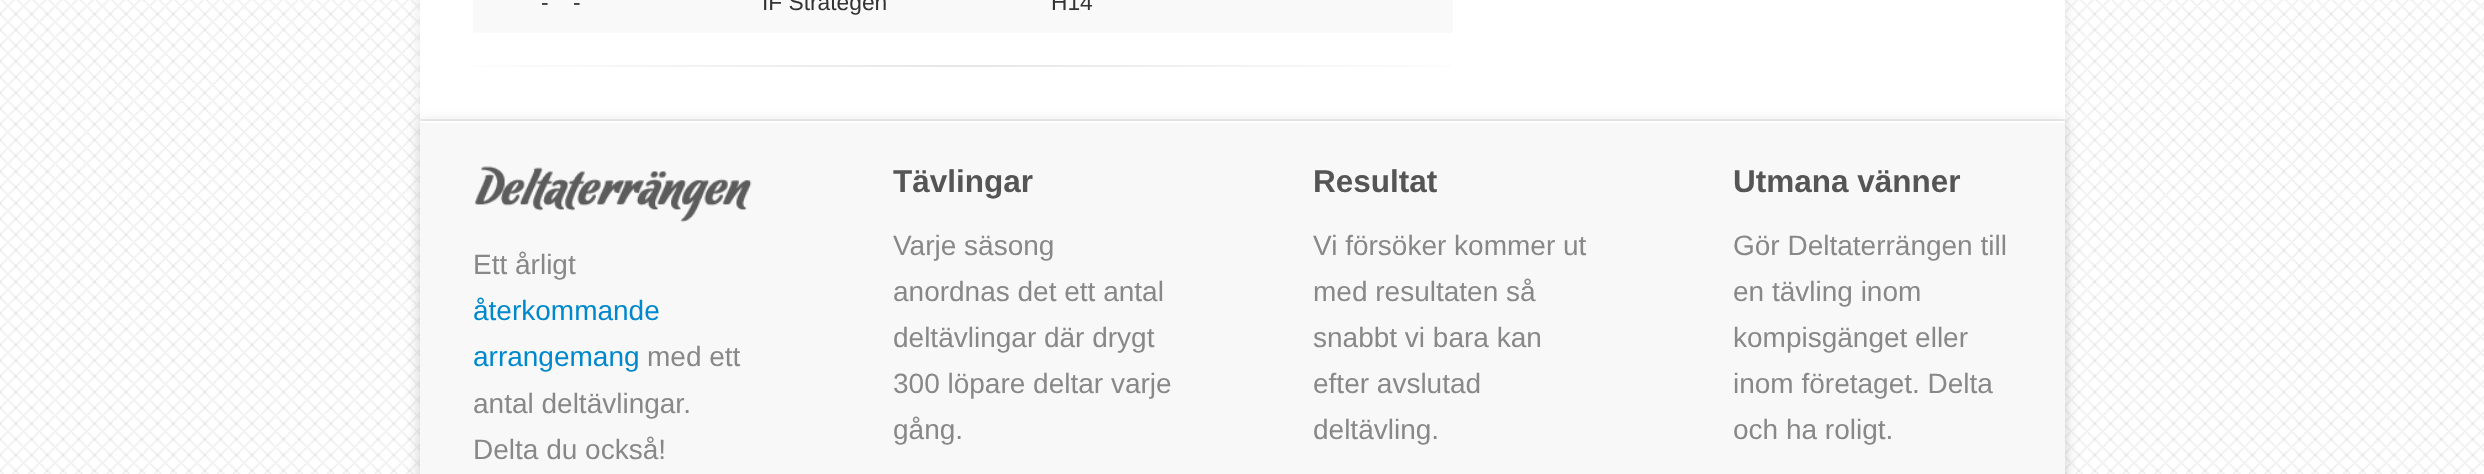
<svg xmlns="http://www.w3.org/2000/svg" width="2484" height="474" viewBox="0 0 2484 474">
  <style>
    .t1 { font: 22.75px Liberation Sans; fill: #333; }
    .t2 { font: 28px Liberation Sans; fill: #888; }
    .t3 { font: 28px Liberation Sans; fill: #08c; }
    .t4 { font: bold 31.5px Liberation Sans; fill: #555; }
  </style>
  <defs>
    <linearGradient id="g1" gradientUnits="userSpaceOnUse" x1="420" y1="66" x2="1505" y2="66"><stop offset="0" stop-color="#fff"/><stop offset="0.5" stop-color="#e6e6e6"/><stop offset="1" stop-color="#fff"/></linearGradient>
  </defs>
  <rect width="100%" height="100%" fill="#fff"/>
  <image x="0" y="0" width="2484" height="474" href="images/1.png"/>
  <rect x="420" y="-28" width="1645" height="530" rx="7" fill="#0000001a" filter="blur(7px)"/>
  <rect x="420" y="0" width="1645" height="119" fill="#fff"/>
  <rect x="420" y="119" width="1645" height="2" fill="#eee"/>
  <rect x="473" y="0" width="980" height="33" fill="#f9f9f9"/>
  <text x="541" y="10" class="t1">-</text>
  <text x="573" y="10" class="t1">-</text>
  <text x="762" y="10" class="t1">IF Strategen</text>
  <text x="1051" y="10" class="t1">H14</text>
  <rect x="474" y="65" width="977" height="2" fill="url(#g1)"/>
  <rect x="420" y="121" width="1645" height="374" fill="#0000001a" filter="blur(7px)"/>
  <rect x="420" y="123" width="1645" height="351" fill="#f8f8f8"/>
  <rect x="420" y="121" width="1645" height="2" fill="#fff"/>
  <image x="474" y="166" width="278" height="57" href="images/2.png"/>
  <text x="473" y="274" class="t2">Ett årligt</text>
  <text x="473" y="320" class="t3">återkommande</text>
  <text x="473" y="366" class="t3">arrangemang</text>
  <text x="647" y="366" class="t2">med ett</text>
  <text x="473" y="413" class="t2">antal deltävlingar.</text>
  <text x="473" y="459" class="t2">Delta du också!</text>
  <text x="893" y="192" class="t4">Tävlingar</text>
  <text x="893" y="255" class="t2">Varje säsong</text>
  <text x="893" y="301" class="t2">anordnas det ett antal</text>
  <text x="893" y="347" class="t2">deltävlingar där drygt</text>
  <text x="893" y="393" class="t2">300 löpare deltar varje</text>
  <text x="893" y="439" class="t2">gång.</text>
  <text x="1313" y="192" class="t4">Resultat</text>
  <text x="1313" y="255" class="t2">Vi försöker kommer ut</text>
  <text x="1313" y="301" class="t2">med resultaten så</text>
  <text x="1313" y="347" class="t2">snabbt vi bara kan</text>
  <text x="1313" y="393" class="t2">efter avslutad</text>
  <text x="1313" y="439" class="t2">deltävling.</text>
  <text x="1733" y="192" class="t4">Utmana vänner</text>
  <text x="1733" y="255" class="t2">Gör Deltaterrängen till</text>
  <text x="1733" y="301" class="t2">en tävling inom</text>
  <text x="1733" y="347" class="t2">kompisgänget eller</text>
  <text x="1733" y="393" class="t2">inom företaget. Delta</text>
  <text x="1733" y="439" class="t2">och ha roligt.</text>
</svg>
